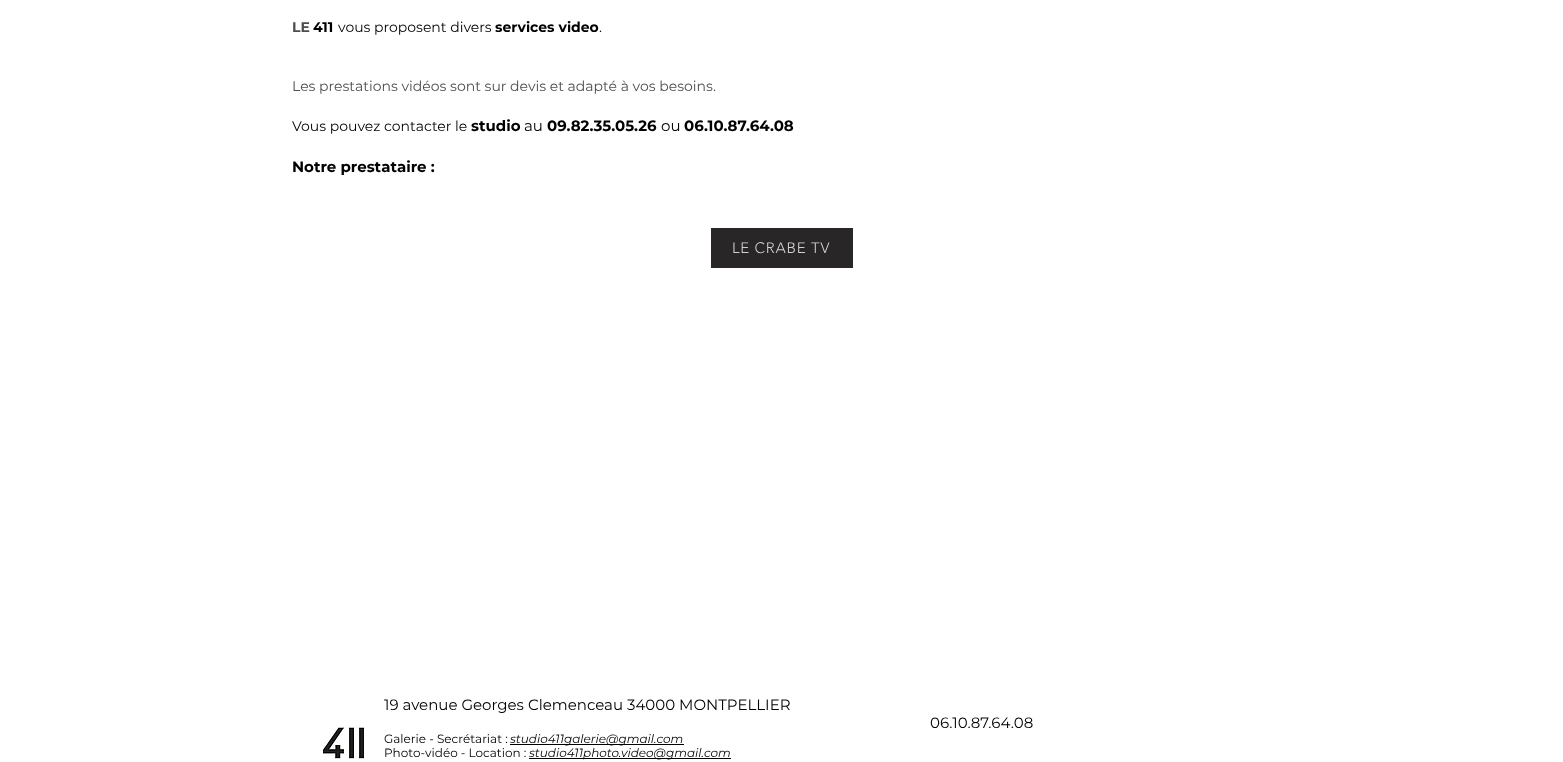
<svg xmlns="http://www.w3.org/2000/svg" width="1563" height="762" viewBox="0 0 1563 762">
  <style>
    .t1 { font: bold 14px Montserrat; fill: #4f4d4d; }
    .t2 { font: bold 14px Montserrat; fill: #000; }
    .t3 { font: 14px Montserrat; fill: #000; }
    .t4 { font: 14px Montserrat; fill: #4f4d4d; }
    .t5 { font: bold 15px Montserrat; fill: #000; }
    .t6 { font: 15px Montserrat; fill: #000; }
    .t7 { font: 300 15px 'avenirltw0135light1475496'; letter-spacing: 0.75px; fill: #d3d2d2; }
    .t8 { font: 12px Montserrat; fill: #000; }
    .t9 { font: italic 12px Montserrat; fill: #000; }
  </style>
  <rect width="100%" height="100%" fill="#fff"/>
  <text x="292" y="32" class="t1">LE</text>
  <text x="313" y="32" class="t2">411</text>
  <text x="338" y="32" class="t3">vous proposent divers</text>
  <text x="495" y="32" class="t2">services video</text>
  <text x="599" y="32" class="t3">.</text>
  <text x="292" y="91" class="t4">Les prestations vidéos sont sur devis et adapté à vos besoins.</text>
  <text x="292" y="131" class="t3">Vous pouvez contacter le</text>
  <text x="471" y="131" class="t5">studio</text>
  <text x="524" y="131" class="t6">au</text>
  <text x="547" y="131" class="t5">09.82.35.05.26</text>
  <text x="661" y="131" class="t6">ou</text>
  <text x="684" y="131" class="t5">06.10.87.64.08</text>
  <text x="292" y="172" class="t5">Notre prestataire :</text>
  <rect x="711" y="228" width="142" height="40" fill="#282626"/>
  <text x="732" y="253" class="t7">LE CRABE TV</text>
  <image x="322" y="727" width="43" height="32" href="images/1.png"/>
  <text x="384" y="710" class="t6">19 avenue Georges Clemenceau 34000 MONTPELLIER</text>
  <text x="930" y="728" class="t6">06.10.87.64.08</text>
  <text x="384" y="743" class="t8">Galerie - Secrétariat :</text>
  <rect x="510" y="744" width="174" height="1" fill="#000"/>
  <text x="510" y="743" class="t9">studio411galerie@gmail.com</text>
  <text x="384" y="757" class="t8">Photo-vidéo - Location :</text>
  <rect x="529" y="758" width="202" height="1" fill="#000"/>
  <text x="529" y="757" class="t9">studio411photo.video@gmail.com</text>
</svg>
